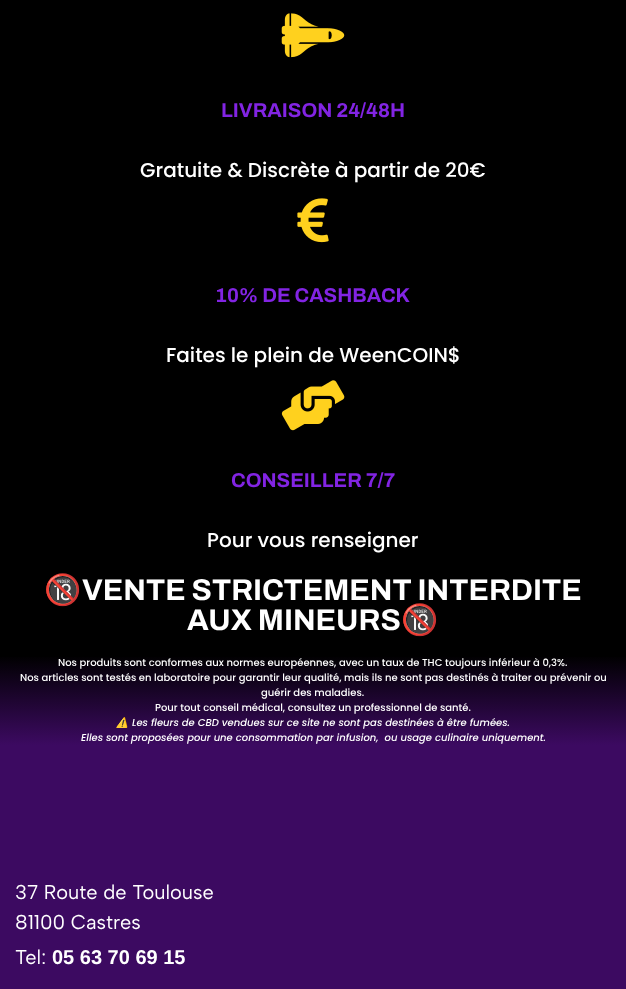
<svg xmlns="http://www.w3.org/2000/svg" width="626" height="989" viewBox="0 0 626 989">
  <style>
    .t1 { font: bold 20px Archivo; fill: #8224e3; }
    .t2 { font: 500 20px Poppins; fill: #fff; }
    .t3 { font: bold 30px Noto Color Emoji; fill: #fff; }
    .t4 { font: bold 30px Archivo; fill: #fff; }
    .t5 { font: 500 10px Poppins; fill: #fff; }
    .t6 { font: italic 10px Noto Color Emoji; fill: #fff; }
    .t7 { font: italic 500 10px Poppins; fill: #fff; }
    .t8 { font: 20px Albert Sans; fill: #fff; }
    .t9 { font: bold 20px Liberation Sans; fill: #fff; }
  </style>
  <defs>
    <linearGradient id="g1" gradientUnits="userSpaceOnUse" x1="313" y1="655" x2="313" y2="745"><stop offset="0" stop-color="#000"/><stop offset="1" stop-color="#3c0a61"/></linearGradient>
  </defs>
  <rect width="100%" height="100%" fill="#000"/>
  <image x="281" y="13" width="64" height="45" href="images/1.png"/>
  <text x="221" y="117" class="t1">LIVRAISON 24/48H</text>
  <text x="140" y="177" class="t2">Gratuite &amp; Discrète à partir de 20€</text>
  <image x="297" y="198" width="32" height="45" href="images/2.png"/>
  <text x="215" y="302" class="t1">10% DE CASHBACK</text>
  <text x="166" y="362" class="t2">Faites le plein de WeenCOIN$</text>
  <image x="281" y="380" width="64" height="51" href="images/3.png"/>
  <text x="231" y="487" class="t1">CONSEILLER 7/7</text>
  <text x="207" y="547" class="t2">Pour vous renseigner</text>
  <text x="44" y="600" class="t3">🔞</text>
  <text x="82" y="600" class="t4">VENTE STRICTEMENT INTERDITE</text>
  <text x="187" y="630" class="t4">AUX MINEURS</text>
  <text x="401" y="630" class="t3">🔞</text>
  <rect x="0" y="657" width="626" height="88" fill="url(#g1)"/>
  <text x="58" y="666" class="t5">Nos produits sont conformes aux normes européennes, avec un taux de THC toujours inférieur à 0,3%.</text>
  <text x="20" y="681" class="t5">Nos articles sont testés en laboratoire pour garantir leur qualité, mais ils ne sont pas destinés à traiter ou prévenir ou</text>
  <text x="261" y="696" class="t5">guérir des maladies.</text>
  <text x="155" y="711" class="t5">Pour tout conseil médical, consultez un professionnel de santé.</text>
  <text x="116" y="726" class="t6">⚠️</text>
  <text x="132" y="726" class="t7">Les fleurs de CBD vendues sur ce site ne sont pas destinées à être fumées.</text>
  <text x="81" y="741" class="t7" xml:space="preserve">Elles sont proposées pour une consommation par infusion,  ou usage culinaire uniquement.</text>
  <rect x="0" y="745" width="626" height="244" fill="#3c0a61"/>
  <text x="15" y="899" class="t8">37 Route de Toulouse</text>
  <text x="15" y="929" class="t8">81100 Castres</text>
  <text x="15" y="964" class="t8">Tel:</text>
  <text x="52" y="964" class="t9">05 63 70 69 15</text>
</svg>
